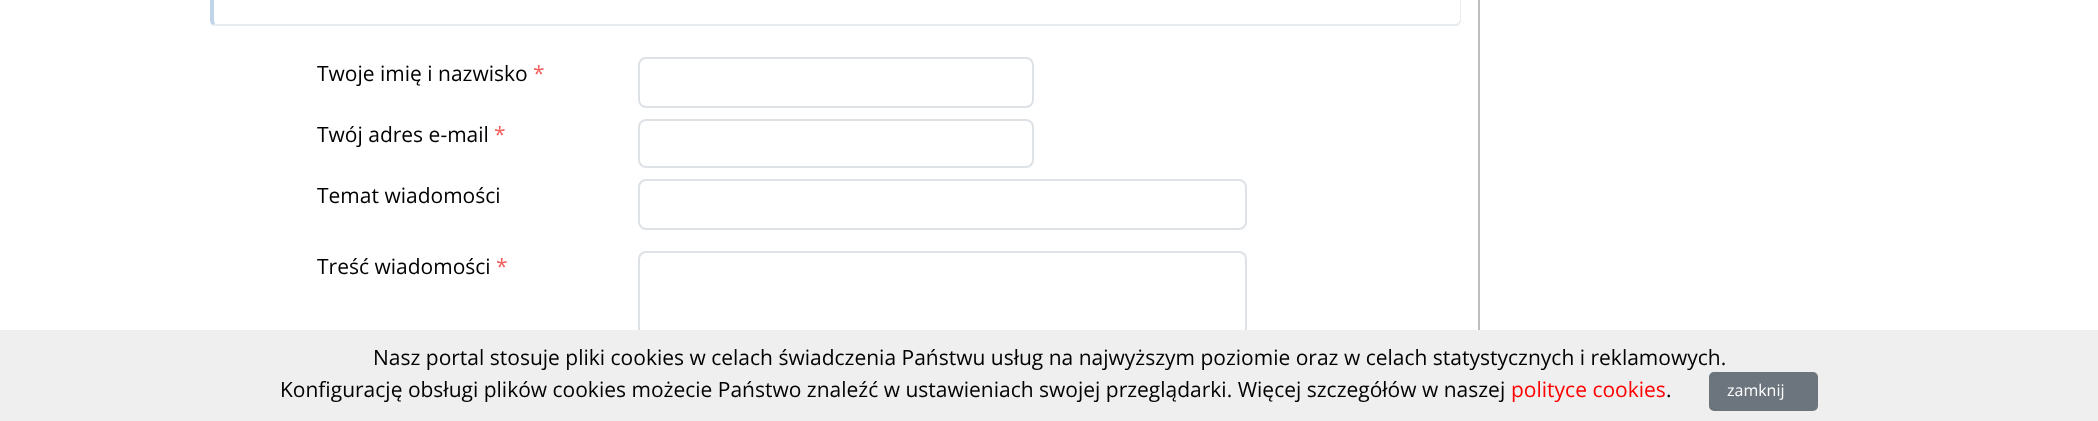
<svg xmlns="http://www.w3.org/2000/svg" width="2098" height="421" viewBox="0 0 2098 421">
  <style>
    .t1 { font: 21px Open Sans; fill: #000; }
    .t2 { font: 21px Open Sans; fill: #f35d5d; }
    .t3 { font: 21px Open Sans; fill: #f00; }
    .t4 { font: 16px Open Sans; fill: #fff; }
  </style>
  <rect width="100%" height="100%" fill="#fff"/>
  <path d="M1461 20V-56C1461-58 1460-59 1460-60L1458-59L1460-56V20L1458 23L1460 24C1460 23 1461 22 1461 20Z" fill="#e9ecef"/>
  <path d="M213 26L212 25L215 24H1456L1458 23L1460 24L1458 26Z" fill="#e9ecef"/>
  <path d="M210-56V20C210 22 211 24 212 25L215 24C215 23 214 22 214 20V-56C214-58 215-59 215-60L212-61C211-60 210-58 210-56Z" fill="#c0d5ea"/>
  <text x="317" y="81" class="t1">Twoje imię i nazwisko</text>
  <text x="533" y="81" class="t2">*</text>
  <rect x="639" y="58" width="394" height="49" rx="7" fill="none" stroke="#dee2e6" stroke-width="2"/>
  <text x="317" y="142" class="t1">Twój adres e-mail</text>
  <text x="494" y="142" class="t2">*</text>
  <rect x="639" y="120" width="394" height="47" rx="7" fill="none" stroke="#dee2e6" stroke-width="2"/>
  <text x="317" y="203" class="t1">Temat wiadomości</text>
  <rect x="639" y="180" width="607" height="49" rx="7" fill="none" stroke="#dee2e6" stroke-width="2"/>
  <text x="317" y="274" class="t1">Treść wiadomości</text>
  <text x="496" y="274" class="t2">*</text>
  <rect x="639" y="252" width="607" height="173" rx="7" fill="none" stroke="#dee2e6" stroke-width="2"/>
  <rect x="1478" y="0" width="2" height="330" fill="#bdbdbd"/>
  <rect x="0" y="330" width="2098" height="91" fill="#efefef"/>
  <text x="373" y="365" class="t1">Nasz portal stosuje pliki cookies w celach świadczenia Państwu usług na najwyższym poziomie oraz w celach statystycznych i reklamowych.</text>
  <text x="280" y="397" class="t1">Konfigurację obsługi plików cookies możecie Państwo znaleźć w ustawieniach swojej przeglądarki. Więcej szczegółów w naszej</text>
  <text x="1511" y="397" class="t3">polityce cookies</text>
  <text x="1666" y="397" class="t1">.</text>
  <rect x="1710" y="373" width="107" height="37" rx="4" fill="#6c757d" stroke="#6c757d" stroke-width="2"/>
  <text x="1727" y="396" class="t4">zamknij</text>
</svg>
